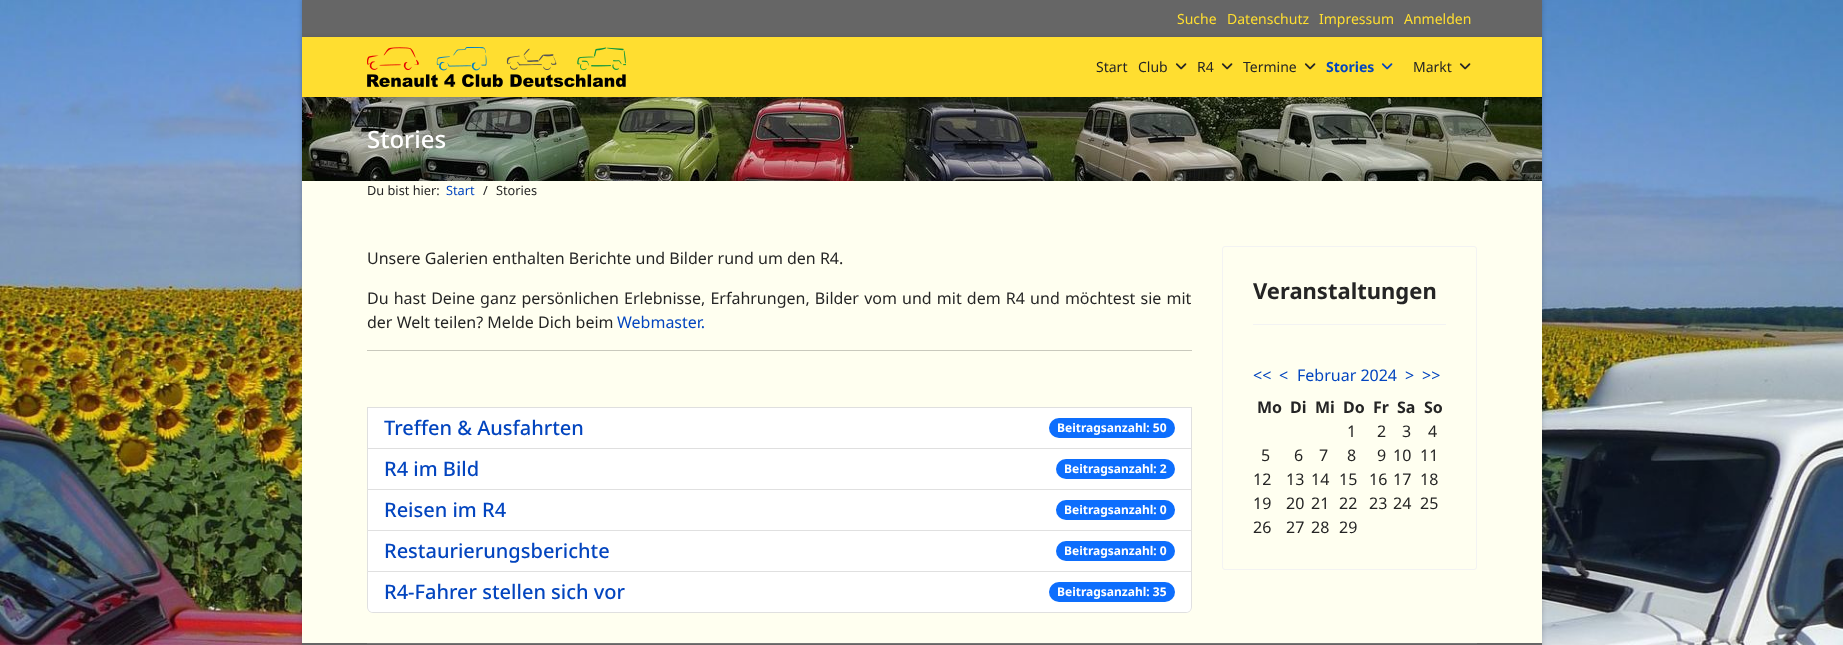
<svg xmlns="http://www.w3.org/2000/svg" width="1843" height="645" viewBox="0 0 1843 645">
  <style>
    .t1 { font: 14px Noto Sans; fill: #ffde30; }
    .t2 { font: 14px Noto Sans; fill: #252525; }
    .t3 { font: bold 14px Noto Sans; fill: #0345bf; }
    .t4 { font: 500 24px Noto Sans; fill: #fff; }
    .t5 { font: 12.75px Noto Sans; fill: #252525; }
    .t6 { font: 12.75px Noto Sans; fill: #0345bf; }
    .t7 { font: 16px Noto Sans; fill: #252525; }
    .t8 { font: 16px Noto Sans; fill: #0345bf; }
    .t9 { font: 500 20px Noto Sans; fill: #0345bf; }
    .t10 { font: bold 12px Noto Sans; fill: #fff; }
    .t11 { font: bold 22px Noto Sans; fill: #252525; }
    .t12 { font: bold 16px Noto Sans; fill: #252525; }
  </style>
  <rect width="100%" height="100%" fill="#fff"/>
  <image x="0" y="0" width="1843" height="645" href="images/1.png"/>
  <rect x="302" y="0" width="1240" height="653" fill="#00000033" filter="blur(2.5px)"/>
  <rect x="302" y="181" width="1240" height="462" fill="#fffff0"/>
  <rect x="302" y="0" width="1240" height="37" fill="#666"/>
  <text x="1177" y="24" class="t1">Suche</text>
  <text x="1227" y="24" class="t1">Datenschutz</text>
  <text x="1319" y="24" class="t1">Impressum</text>
  <text x="1404" y="24" class="t1">Anmelden</text>
  <image x="302" y="97" width="1240" height="84" href="images/5.png"/>
  <rect x="302" y="37" width="1240" height="60" fill="#0000001a" filter="blur(2px)"/>
  <rect x="302" y="37" width="1240" height="60" fill="#ffde30"/>
  <image x="367" y="47" width="259" height="40" href="images/2.png"/>
  <text x="1096" y="72" class="t2">Start</text>
  <text x="1138" y="72" class="t2">Club</text>
  <image x="1175" y="63" width="12" height="7" href="images/3.png"/>
  <text x="1197" y="72" class="t2">R4</text>
  <image x="1221" y="63" width="12" height="7" href="images/3.png"/>
  <text x="1243" y="72" class="t2">Termine</text>
  <image x="1304" y="63" width="12" height="7" href="images/3.png"/>
  <text x="1326" y="72" class="t3">Stories</text>
  <image x="1381" y="63" width="12" height="7" href="images/4.png"/>
  <text x="1413" y="72" class="t2">Markt</text>
  <image x="1459" y="63" width="12" height="7" href="images/3.png"/>
  <text x="367" y="148" class="t4">Stories</text>
  <text x="367" y="195" class="t5">Du bist hier:</text>
  <text x="446" y="195" class="t6">Start</text>
  <text x="483" y="195" class="t5">/</text>
  <text x="496" y="195" class="t5">Stories</text>
  <text x="367" y="264" class="t7">Unsere Galerien enthalten Berichte und Bilder rund um den R4.</text>
  <text x="367" y="304" word-spacing="1" class="t7">Du hast Deine ganz persönlichen Erlebnisse, Erfahrungen, Bilder vom und mit dem R4 und möchtest sie mit</text>
  <text x="367" y="328" class="t7">der Welt teilen? Melde Dich beim</text>
  <text x="617" y="328" class="t8">Webmaster.</text>
  <rect x="367" y="350" width="825" height="1" fill="#c9c9bd"/>
  <rect x="367.5" y="407.5" width="824" height="41" fill="#fff" stroke="#dfdfdf"/>
  <text x="384" y="435" class="t9">Treffen &amp; Ausfahrten</text>
  <rect x="1049" y="418" width="126" height="20" rx="10" fill="#0d6efd"/>
  <text x="1057" y="432" class="t10">Beitragsanzahl: 50</text>
  <rect x="367" y="449" width="825" height="123" fill="#fff"/>
  <path d="M1192 449V490L1191 489V449Z" fill="#dfdfdf"/>
  <path d="M1192 490H367L368 489H1191Z" fill="#0000001f"/>
  <path d="M367 490V449H368V489Z" fill="#0000001f"/>
  <text x="384" y="476" class="t9">R4 im Bild</text>
  <rect x="1056" y="459" width="119" height="20" rx="10" fill="#0d6efd"/>
  <text x="1064" y="473" class="t10">Beitragsanzahl: 2</text>
  <path d="M1192 490V531L1191 530V490Z" fill="#dfdfdf"/>
  <path d="M1192 531H367L368 530H1191Z" fill="#0000001f"/>
  <path d="M367 531V490H368V530Z" fill="#0000001f"/>
  <text x="384" y="517" class="t9">Reisen im R4</text>
  <rect x="1056" y="500" width="119" height="20" rx="10" fill="#0d6efd"/>
  <text x="1064" y="514" class="t10">Beitragsanzahl: 0</text>
  <path d="M1192 531V572L1191 571V531Z" fill="#dfdfdf"/>
  <path d="M1192 572H367L368 571H1191Z" fill="#0000001f"/>
  <path d="M367 572V531H368V571Z" fill="#0000001f"/>
  <text x="384" y="558" class="t9">Restaurierungsberichte</text>
  <rect x="1056" y="541" width="119" height="20" rx="10" fill="#0d6efd"/>
  <text x="1064" y="555" class="t10">Beitragsanzahl: 0</text>
  <path d="M367 572H1192V607C1192 610.5 1189.5 613 1186 613H373C369.5 613 367 610.5 367 607Z" fill="#fff"/>
  <path d="M367 572H1192V607C1192 610 1189 613 1186 613H373C370 613 367 610 367 607ZM368 572H1191V607C1191 610 1189 612 1186 612H373C370 612 368 610 368 607Z" fill="#0000001f" fill-rule="evenodd"/>
  <text x="384" y="599" class="t9">R4-Fahrer stellen sich vor</text>
  <rect x="1049" y="582" width="126" height="20" rx="10" fill="#0d6efd"/>
  <text x="1057" y="596" class="t10">Beitragsanzahl: 35</text>
  <rect x="1222.5" y="246.5" width="254" height="323" rx="2.5" fill="none" stroke="#f3f3f3"/>
  <rect x="1253" y="324" width="193" height="1" fill="#f3f3f3"/>
  <text x="1253" y="299" class="t11">Veranstaltungen</text>
  <text x="1253" y="381" class="t8">&lt;&lt;</text>
  <text x="1279" y="381" class="t8">&lt;</text>
  <text x="1297" y="381" class="t8">Februar 2024</text>
  <text x="1405" y="381" class="t8">&gt;</text>
  <text x="1422" y="381" class="t8">&gt;&gt;</text>
  <text x="1257" y="413" class="t12">Mo</text>
  <text x="1290" y="413" class="t12">Di</text>
  <text x="1315" y="413" class="t12">Mi</text>
  <text x="1343" y="413" class="t12">Do</text>
  <text x="1373" y="413" class="t12">Fr</text>
  <text x="1397" y="413" class="t12">Sa</text>
  <text x="1424" y="413" class="t12">So</text>
  <text x="1347" y="437" class="t7">1</text>
  <text x="1377" y="437" class="t7">2</text>
  <text x="1402" y="437" class="t7">3</text>
  <text x="1428" y="437" class="t7">4</text>
  <text x="1261" y="461" class="t7">5</text>
  <text x="1294" y="461" class="t7">6</text>
  <text x="1319" y="461" class="t7">7</text>
  <text x="1347" y="461" class="t7">8</text>
  <text x="1377" y="461" class="t7">9</text>
  <text x="1393" y="461" class="t7">10</text>
  <text x="1420" y="461" class="t7">11</text>
  <text x="1253" y="485" class="t7">12</text>
  <text x="1286" y="485" class="t7">13</text>
  <text x="1311" y="485" class="t7">14</text>
  <text x="1339" y="485" class="t7">15</text>
  <text x="1369" y="485" class="t7">16</text>
  <text x="1393" y="485" class="t7">17</text>
  <text x="1420" y="485" class="t7">18</text>
  <text x="1253" y="509" class="t7">19</text>
  <text x="1286" y="509" class="t7">20</text>
  <text x="1311" y="509" class="t7">21</text>
  <text x="1339" y="509" class="t7">22</text>
  <text x="1369" y="509" class="t7">23</text>
  <text x="1393" y="509" class="t7">24</text>
  <text x="1420" y="509" class="t7">25</text>
  <text x="1253" y="533" class="t7">26</text>
  <text x="1286" y="533" class="t7">27</text>
  <text x="1311" y="533" class="t7">28</text>
  <text x="1339" y="533" class="t7">29</text>
  <rect x="302" y="643" width="1240" height="2" fill="#666"/>
  <rect x="367" y="643" width="1110" height="1" fill="#757575"/>
</svg>
